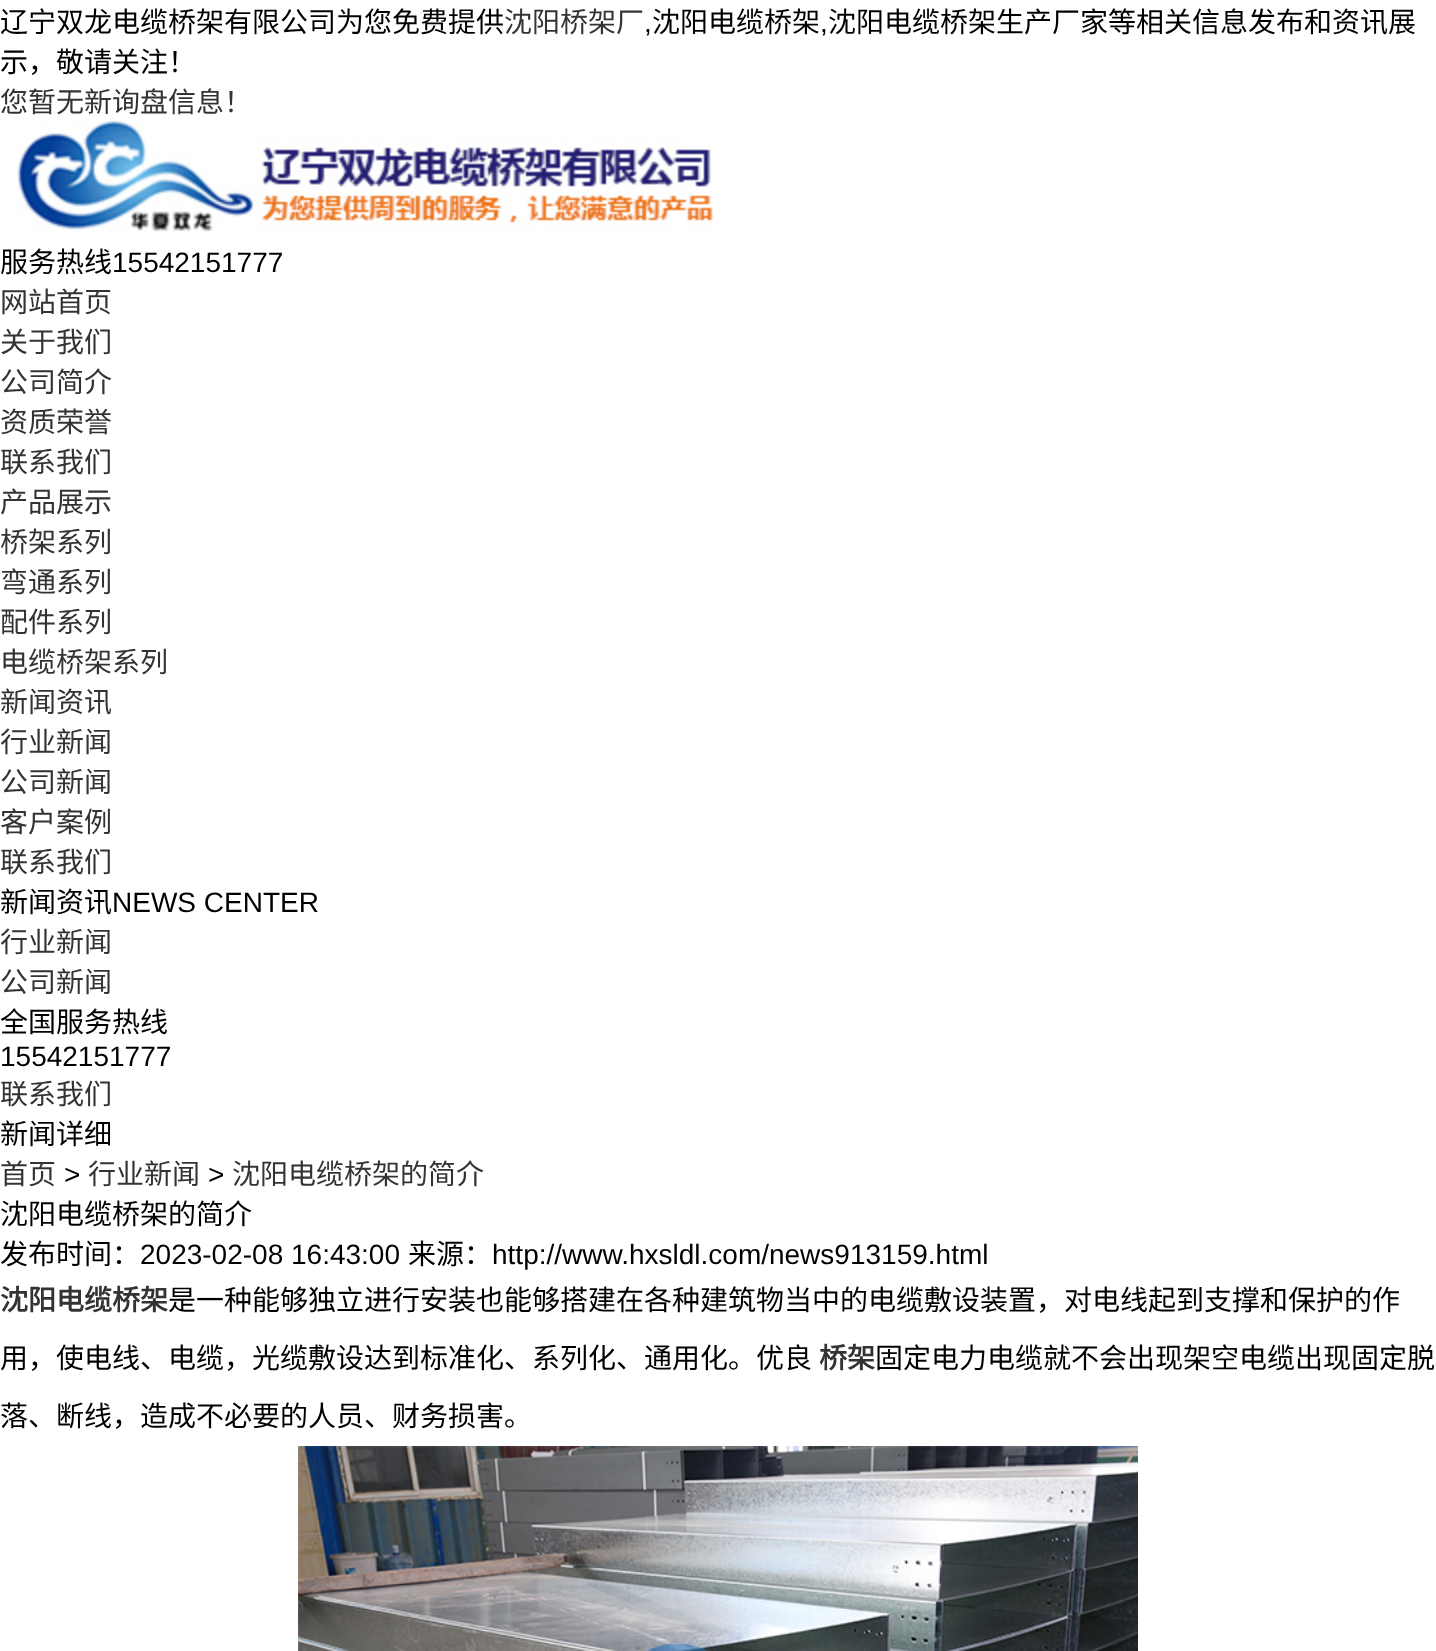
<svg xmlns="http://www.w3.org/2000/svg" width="1436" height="1651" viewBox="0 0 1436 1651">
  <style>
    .t1 { font: 28px Noto Sans CJK SC; fill: #000; }
    .t2 { font: 28px Noto Sans CJK SC; fill: #333; }
    .t3 { font: 28px Liberation Sans; fill: #000; }
    .t4 { font: bold 28px Noto Sans CJK SC; fill: #333; }
  </style>
  <rect width="100%" height="100%" fill="#fff"/>
  <text x="0" y="32" class="t1">辽宁双龙电缆桥架有限公司为您免费提供</text>
  <text x="504" y="32" class="t2">沈阳桥架厂</text>
  <text x="644" y="32" class="t3">,</text>
  <text x="652" y="32" class="t1">沈阳电缆桥架</text>
  <text x="820" y="32" class="t3">,</text>
  <text x="828" y="32" class="t1">沈阳电缆桥架生产厂家等相关信息发布和资讯展</text>
  <text x="0" y="72" class="t1">示，敬请关注！</text>
  <text x="0" y="112" class="t2">您暂无新询盘信息！</text>
  <image x="17" y="120" width="696" height="112" href="images/1.png"/>
  <text x="0" y="272" class="t1">服务热线</text>
  <text x="112" y="272" class="t3">15542151777</text>
  <text x="0" y="312" class="t2">网站首页</text>
  <text x="0" y="352" class="t2">关于我们</text>
  <text x="0" y="392" class="t2">公司简介</text>
  <text x="0" y="432" class="t2">资质荣誉</text>
  <text x="0" y="472" class="t2">联系我们</text>
  <text x="0" y="512" class="t2">产品展示</text>
  <text x="0" y="552" class="t2">桥架系列</text>
  <text x="0" y="592" class="t2">弯通系列</text>
  <text x="0" y="632" class="t2">配件系列</text>
  <text x="0" y="672" class="t2">电缆桥架系列</text>
  <text x="0" y="712" class="t2">新闻资讯</text>
  <text x="0" y="752" class="t2">行业新闻</text>
  <text x="0" y="792" class="t2">公司新闻</text>
  <text x="0" y="832" class="t2">客户案例</text>
  <text x="0" y="872" class="t2">联系我们</text>
  <text x="0" y="912" class="t1">新闻资讯</text>
  <text x="112" y="912" class="t3">NEWS CENTER</text>
  <text x="0" y="952" class="t2">行业新闻</text>
  <text x="0" y="992" class="t2">公司新闻</text>
  <text x="0" y="1032" class="t1">全国服务热线</text>
  <text x="0" y="1066" class="t3">15542151777</text>
  <text x="0" y="1104" class="t2">联系我们</text>
  <text x="0" y="1144" class="t1">新闻详细</text>
  <text x="0" y="1184" class="t2">首页</text>
  <text x="64" y="1184" class="t3">&gt;</text>
  <text x="88" y="1184" class="t2">行业新闻</text>
  <text x="208" y="1184" class="t3">&gt;</text>
  <text x="232" y="1184" class="t2">沈阳电缆桥架的简介</text>
  <text x="0" y="1224" class="t1">沈阳电缆桥架的简介</text>
  <text x="0" y="1264" class="t1">发布时间：</text>
  <text x="140" y="1264" class="t3">2023-02-08 16:43:00</text>
  <text x="408" y="1264" class="t1">来源：</text>
  <text x="492" y="1264" class="t3">http://www.hxsldl.com/news913159.html</text>
  <text x="0" y="1310" class="t4">沈阳电缆桥架</text>
  <text x="168" y="1310" class="t1">是一种能够独立进行安装也能够搭建在各种建筑物当中的电缆敷设装置，对电线起到支撑和保护的作</text>
  <text x="0" y="1368" class="t1">用，使电线、电缆，光缆敷设达到标准化、系列化、通用化。优良</text>
  <text x="819" y="1368" class="t4">桥架</text>
  <text x="875" y="1368" class="t1">固定电力电缆就不会出现架空电缆出现固定脱</text>
  <text x="0" y="1426" class="t1">落、断线，造成不必要的人员、财务损害。</text>
  <image x="298" y="1446" width="840" height="205" href="images/2.png"/>
</svg>
